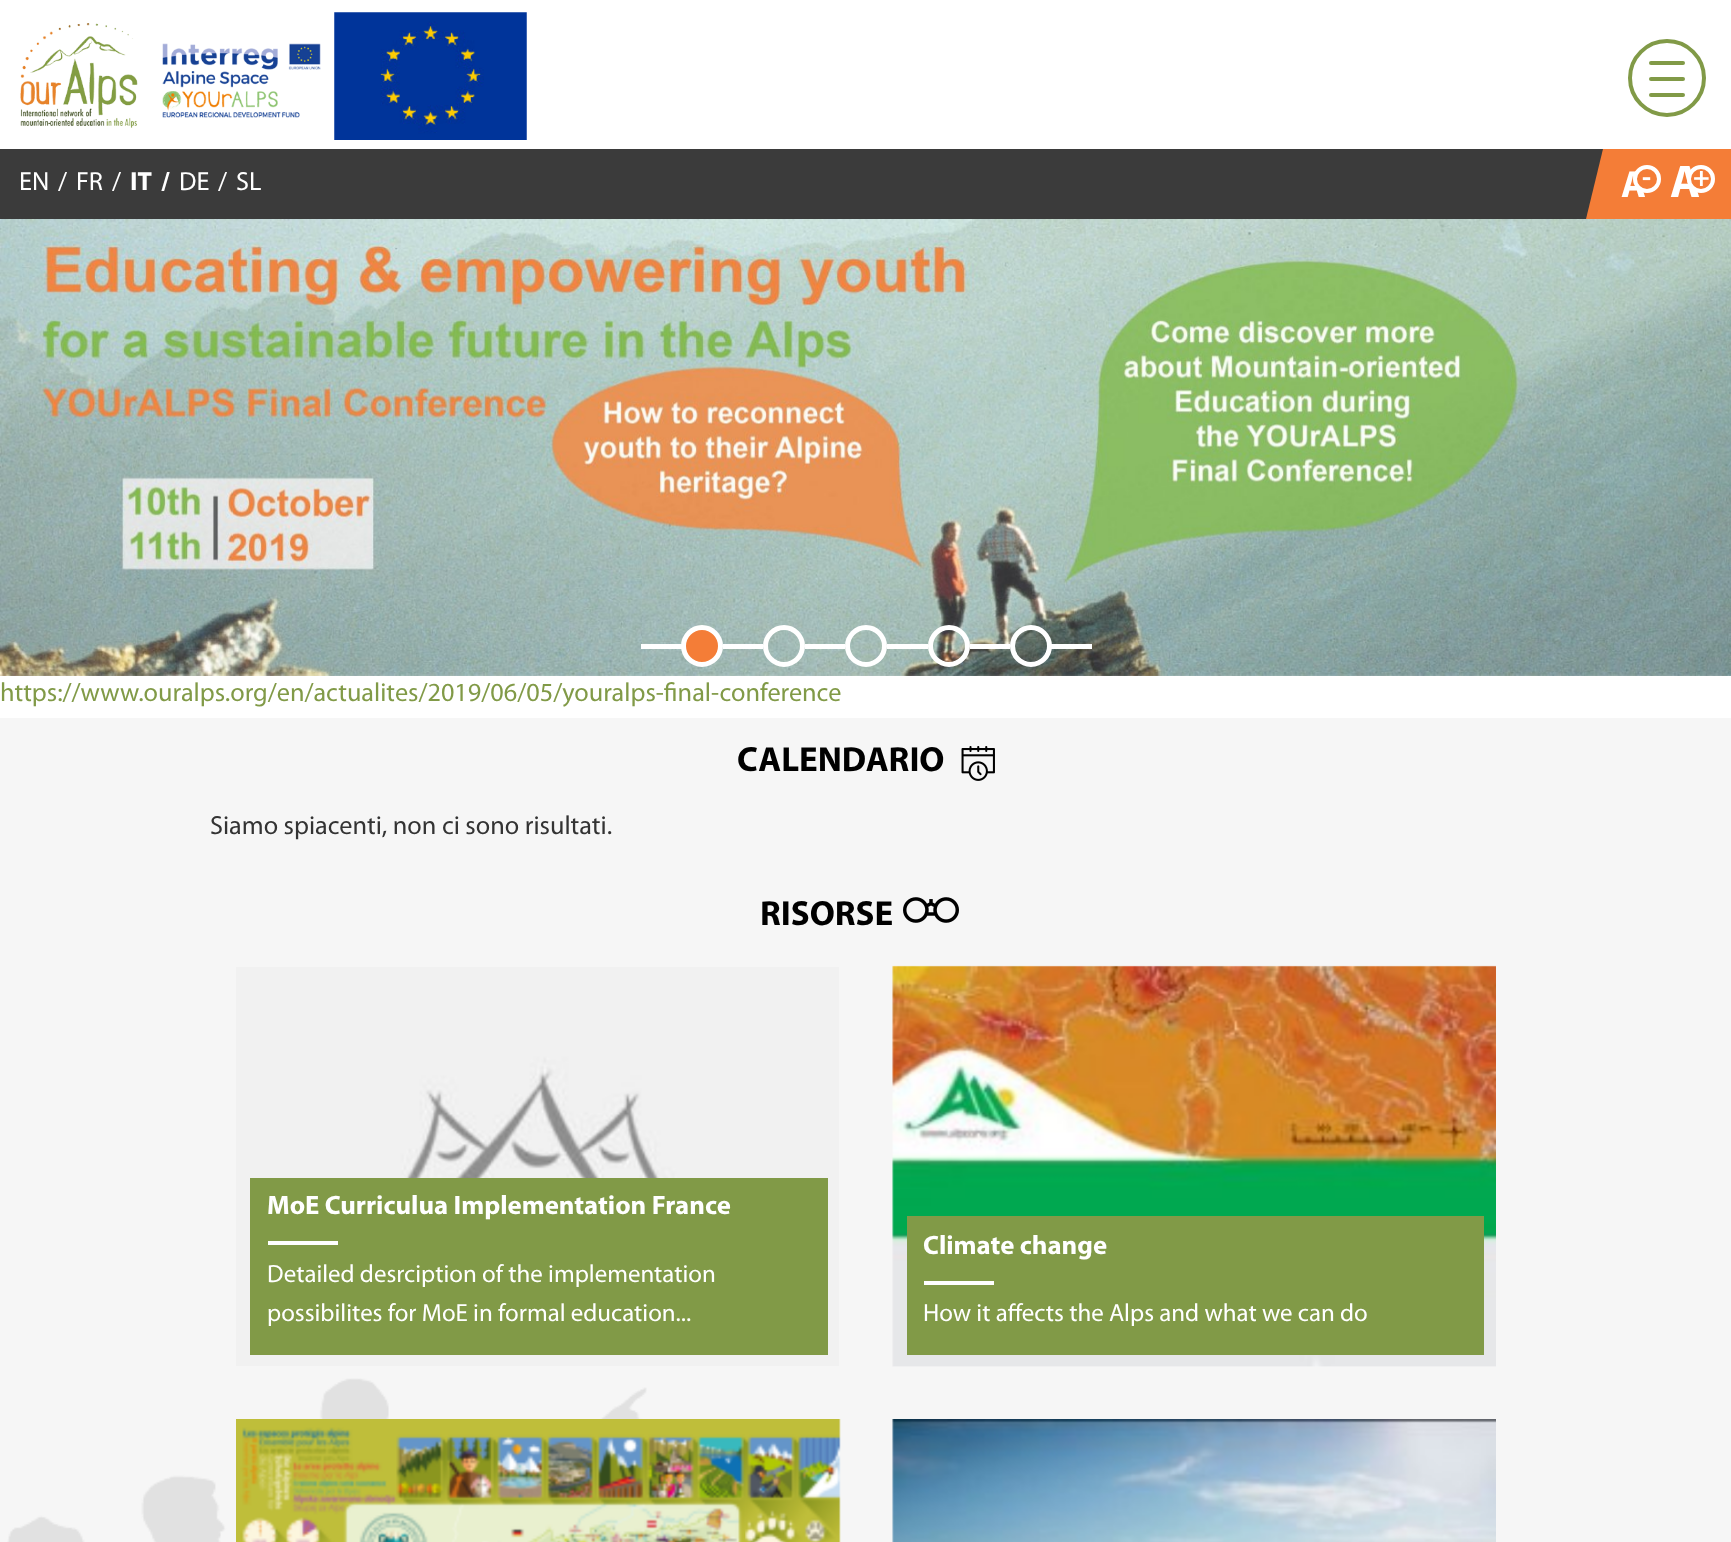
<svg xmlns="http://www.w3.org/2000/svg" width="1731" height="1542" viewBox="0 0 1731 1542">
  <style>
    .t1 { font: 26.25px Myriad; fill: #fff; }
    .t2 { font: bold 26.25px Myriad; fill: #fff; }
    .t3 { font: bold 38px Myriad; fill: #fff; }
    .t4 { font: bold 28px Myriad; fill: #fff; }
    .t5 { font: bold 46px Myriad; fill: #fff; }
    .t6 { font: 26.25px Myriad; fill: #819a47; }
    .t7 { font: bold 35px Myriad; fill: #000; }
    .t8 { font: 26.25px Myriad; fill: #333; }
    .t9 { font: bold 26.75px Myriad; fill: #fff; }
    .t10 { font: 24.9px Myriad; fill: #fff; }
  </style>
  <rect width="100%" height="100%" fill="#fff"/>
  <image x="20" y="23" width="118" height="105" href="images/1.png"/>
  <image x="162" y="43" width="159" height="75" href="images/2.png"/>
  <image x="334" y="12" width="193" height="128" href="images/3.png"/>
  <circle cx="1667" cy="78" r="37" fill="none" stroke="#819a47" stroke-width="4"/>
  <rect x="1649" y="61" width="36" height="4" rx="2" fill="#819a47"/>
  <rect x="1649" y="77" width="36" height="4" rx="2" fill="#819a47"/>
  <rect x="1649" y="93" width="36" height="4" rx="2" fill="#819a47"/>
  <rect x="0" y="149" width="1603" height="70" fill="#3b3b3b"/>
  <text x="19" y="190" class="t1">EN</text>
  <text x="58" y="190" class="t1">/</text>
  <text x="76" y="190" class="t1">FR</text>
  <text x="112" y="190" class="t1">/</text>
  <text x="130" y="190" class="t2">IT</text>
  <text x="161" y="190" class="t2">/</text>
  <text x="179" y="190" class="t1">DE</text>
  <text x="218" y="190" class="t1">/</text>
  <text x="236" y="190" class="t1">SL</text>
  <rect x="1603" y="149" width="128" height="70" fill="#f47d37"/>
  <path d="M1603 219H1586L1603 149Z" fill="#f47d37"/>
  <text x="1621" y="197" class="t3">A</text>
  <circle cx="1647" cy="179" r="12" fill="#f47d37" stroke="#fff" stroke-width="4"/>
  <text x="1642" y="186" class="t4">-</text>
  <text x="1670" y="197" class="t5">A</text>
  <circle cx="1701" cy="179" r="12" fill="#f47d37" stroke="#fff" stroke-width="4"/>
  <text x="1693" y="186" class="t4">+</text>
  <image x="0" y="219" width="1731" height="457" href="images/4.png"/>
  <circle cx="702" cy="646" r="18.5" fill="#f47d37" stroke="#fff" stroke-width="5"/>
  <rect x="641" y="644" width="42" height="5" fill="#fff"/>
  <rect x="723" y="644" width="40" height="5" fill="#fff"/>
  <circle cx="784" cy="646" r="18.5" fill="none" stroke="#fff" stroke-width="5"/>
  <rect x="805" y="644" width="40" height="5" fill="#fff"/>
  <circle cx="866" cy="646" r="18.5" fill="none" stroke="#fff" stroke-width="5"/>
  <rect x="887" y="644" width="41" height="5" fill="#fff"/>
  <circle cx="949" cy="646" r="18.5" fill="none" stroke="#fff" stroke-width="5"/>
  <rect x="970" y="644" width="40" height="5" fill="#fff"/>
  <circle cx="1031" cy="646" r="18.5" fill="none" stroke="#fff" stroke-width="5"/>
  <rect x="1050" y="644" width="42" height="5" fill="#fff"/>
  <text x="0" y="701" class="t6">https://www.ouralps.org/en/actualites/2019/06/05/youralps-final-conference</text>
  <rect x="0" y="718" width="1731" height="824" fill="#f6f6f6"/>
  <image x="7" y="1378" width="640" height="164" href="images/5.png"/>
  <text x="737" y="771" class="t7">CALENDARIO</text>
  <image x="961" y="746" width="34" height="35" href="images/6.png"/>
  <text x="210" y="834" class="t8">Siamo spiacenti, non ci sono risultati.</text>
  <text x="760" y="925" class="t7">RISORSE</text>
  <image x="903" y="897" width="56" height="26" href="images/7.png"/>
  <image x="236" y="967" width="603" height="399" href="images/8.png"/>
  <rect x="250" y="1178" width="578" height="177" fill="#819a47"/>
  <text x="267" y="1214" class="t9">MoE Curriculua Implementation France</text>
  <rect x="268" y="1241" width="70" height="4" fill="#fff"/>
  <text x="267" y="1282" class="t10">Detailed desrciption of the implementation</text>
  <text x="267" y="1321" class="t10">possibilites for MoE in formal education...</text>
  <image x="892" y="965" width="604" height="402" href="images/9.png"/>
  <rect x="907" y="1216" width="577" height="139" fill="#819a47"/>
  <text x="923" y="1254" class="t9">Climate change</text>
  <rect x="924" y="1281" width="70" height="4" fill="#fff"/>
  <text x="923" y="1321" class="t10">How it affects the Alps and what we can do</text>
  <image x="236" y="1419" width="605" height="123" href="images/10.png"/>
  <image x="892" y="1419" width="604" height="123" href="images/11.png"/>
</svg>
